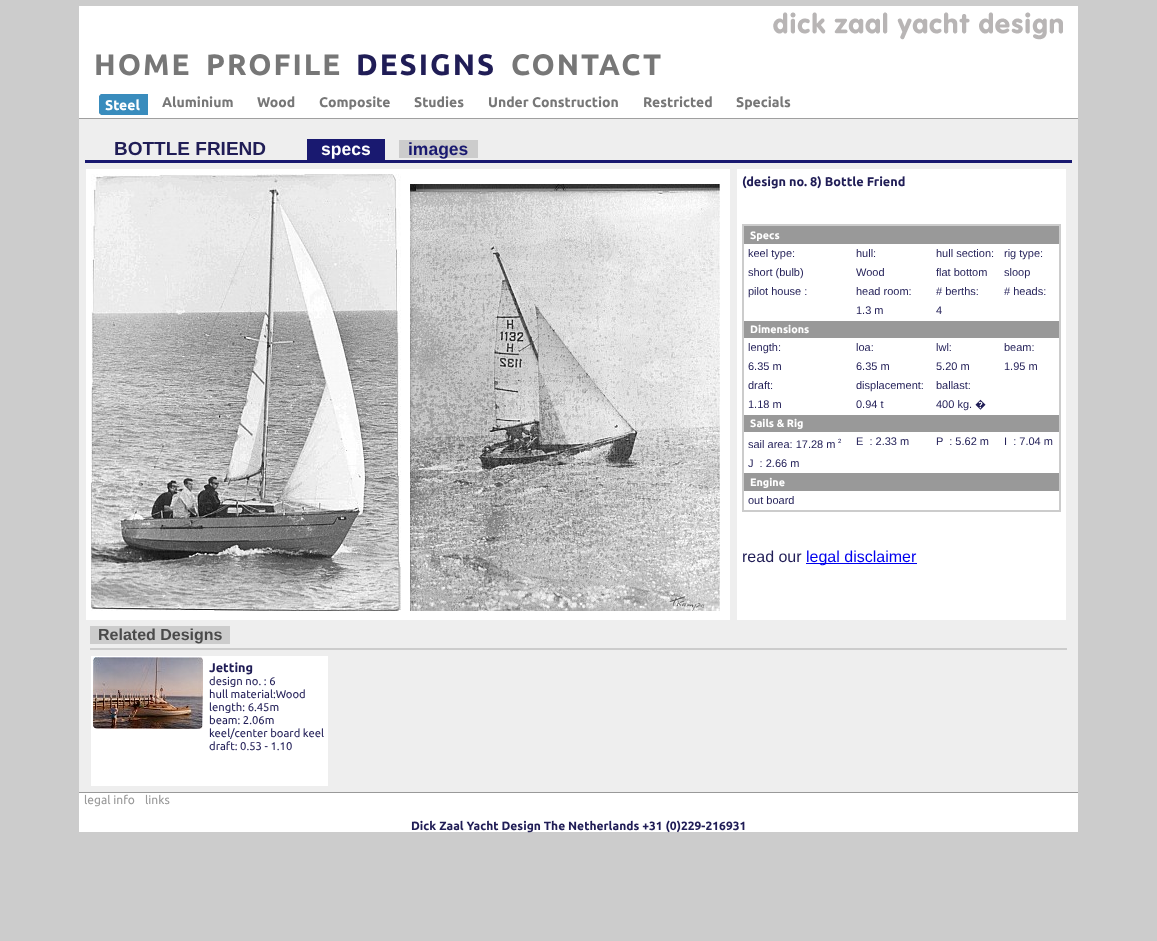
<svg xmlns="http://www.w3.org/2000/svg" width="1157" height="941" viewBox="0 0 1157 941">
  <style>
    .t1 { font: bold 29.5px Ubuntu; letter-spacing: 2px; fill: #777; }
    .t2 { font: bold 29.5px Ubuntu; letter-spacing: 2px; fill: #201d56; }
    .t3 { font: bold 14px Ubuntu; fill: #fff; }
    .t4 { font: bold 14px Ubuntu; fill: #777; }
    .t5 { font: bold 19px Liberation Sans; fill: #201d56; }
    .t6 { font: bold 17.5px Liberation Sans; fill: #fff; }
    .t7 { font: bold 17.5px Liberation Sans; fill: #191970; }
    .t8 { font: bold 12.7px Ubuntu; fill: #201d56; }
    .t9 { font: bold 10.75px Ubuntu; fill: #fff; }
    .t10 { font: 11px Liberation Sans; fill: #201d56; }
    .t11 { font: 11px Noto Sans; fill: #201d56; }
    .t12 { font: 6px Liberation Sans; fill: #201d56; }
    .t13 { font: 16px Liberation Sans; fill: #201d56; }
    .t14 { font: 16px Liberation Sans; fill: #00e; }
    .t15 { font: bold 16px Liberation Sans; fill: #4a4a4a; }
    .t16 { font: 11.25px Ubuntu; fill: #201d56; }
    .t17 { font: 12px Ubuntu; fill: #999; }
    .t18 { font: bold 12px Ubuntu; fill: #201d56; }
  </style>
  <rect width="100%" height="100%" fill="#ccc"/>
  <rect x="79" y="6" width="999" height="826" fill="#fff"/>
  <image x="773" y="12" width="290" height="28" href="images/1.png"/>
  <text x="94" y="75" class="t1">HOME</text>
  <text x="206" y="75" class="t1">PROFILE</text>
  <text x="356" y="75" class="t2">DESIGNS</text>
  <text x="511" y="75" class="t1">CONTACT</text>
  <rect x="79" y="118" width="999" height="1" fill="#9f9f9f"/>
  <rect x="102" y="94" width="46" height="21" fill="#398cbd"/>
  <image x="99" y="94" width="3" height="21" href="images/2.png"/>
  <text x="105" y="110" class="t3">Steel</text>
  <text x="162" y="107" class="t4">Aluminium</text>
  <text x="257" y="107" class="t4">Wood</text>
  <text x="319" y="107" class="t4">Composite</text>
  <text x="414" y="107" class="t4">Studies</text>
  <text x="488" y="107" class="t4">Under Construction</text>
  <text x="643" y="107" class="t4">Restricted</text>
  <text x="736" y="107" class="t4">Specials</text>
  <rect x="79" y="119" width="999" height="673" fill="#eee"/>
  <rect x="85" y="160" width="987" height="3" fill="#191970"/>
  <text x="114" y="155" class="t5">BOTTLE FRIEND</text>
  <rect x="307" y="139" width="78" height="21" fill="#191970"/>
  <text x="321" y="155" class="t6">specs</text>
  <rect x="399" y="140" width="79" height="18" fill="#ccc"/>
  <text x="408" y="155" class="t7">images</text>
  <rect x="86" y="169" width="644" height="451" fill="#fff"/>
  <image x="91" y="174" width="310" height="437" href="images/3.png"/>
  <image x="410" y="184" width="310" height="427" href="images/4.png"/>
  <rect x="737" y="169" width="329" height="451" fill="#fff"/>
  <text x="742" y="186" class="t8">(design no. 8) Bottle Friend</text>
  <rect x="742" y="224" width="319" height="2" fill="#ccc"/>
  <rect x="1059" y="224" width="2" height="288" fill="#ccc"/>
  <rect x="742" y="510" width="319" height="2" fill="#ccc"/>
  <rect x="742" y="224" width="2" height="288" fill="#ccc"/>
  <rect x="744" y="226" width="315" height="18" fill="#999"/>
  <text x="750" y="239" class="t9">Specs</text>
  <text x="748" y="257" class="t10">keel type:</text>
  <text x="748" y="276" class="t10">short (bulb)</text>
  <text x="856" y="257" class="t10">hull:</text>
  <text x="856" y="276" class="t10">Wood</text>
  <text x="936" y="257" class="t10">hull section:</text>
  <text x="936" y="276" class="t10">flat bottom</text>
  <text x="1004" y="257" class="t10">rig type:</text>
  <text x="1004" y="276" class="t10">sloop</text>
  <text x="748" y="295" class="t10">pilot house :</text>
  <text x="856" y="295" class="t10">head room:</text>
  <text x="856" y="314" class="t10">1.3 m</text>
  <text x="936" y="295" class="t10"># berths:</text>
  <text x="936" y="314" class="t10">4</text>
  <text x="1004" y="295" class="t10"># heads:</text>
  <rect x="744" y="321" width="315" height="17" fill="#999"/>
  <text x="750" y="333" class="t9">Dimensions</text>
  <text x="748" y="351" class="t10">length:</text>
  <text x="748" y="370" class="t10">6.35 m</text>
  <text x="856" y="351" class="t10">loa:</text>
  <text x="856" y="370" class="t10">6.35 m</text>
  <text x="936" y="351" class="t10">lwl:</text>
  <text x="936" y="370" class="t10">5.20 m</text>
  <text x="1004" y="351" class="t10">beam:</text>
  <text x="1004" y="370" class="t10">1.95 m</text>
  <text x="748" y="389" class="t10">draft:</text>
  <text x="748" y="408" class="t10">1.18 m</text>
  <text x="856" y="389" class="t10">displacement:</text>
  <text x="856" y="408" class="t10">0.94 t</text>
  <text x="936" y="389" class="t10">ballast:</text>
  <text x="936" y="408" class="t10">400 kg.</text>
  <text x="975" y="408" class="t11">�</text>
  <rect x="744" y="415" width="315" height="17" fill="#999"/>
  <text x="750" y="427" class="t9">Sails &amp; Rig</text>
  <text x="748" y="448" class="t10">sail area: 17.28 m</text>
  <text x="838" y="443" class="t12">2</text>
  <text x="856" y="445" class="t10" xml:space="preserve">E  : 2.33 m</text>
  <text x="936" y="445" class="t10" xml:space="preserve">P  : 5.62 m</text>
  <text x="1004" y="445" class="t10" xml:space="preserve">I  : 7.04 m</text>
  <text x="748" y="467" class="t10" xml:space="preserve">J  : 2.66 m</text>
  <rect x="744" y="473" width="315" height="18" fill="#999"/>
  <text x="750" y="486" class="t9">Engine</text>
  <text x="748" y="504" class="t10">out board</text>
  <text x="742" y="562" class="t13">read our</text>
  <rect x="806" y="563" width="111" height="1" fill="#00e"/>
  <text x="806" y="562" class="t14">legal disclaimer</text>
  <rect x="90" y="648" width="977" height="2" fill="#ccc"/>
  <rect x="90" y="626" width="140" height="18" fill="#ccc"/>
  <text x="98" y="640" class="t15">Related Designs</text>
  <rect x="91" y="656" width="237" height="130" fill="#fff"/>
  <image x="93" y="657" width="110" height="72" href="images/5.png"/>
  <text x="209" y="672" class="t8">Jetting</text>
  <text x="209" y="685" class="t16">design no. : 6</text>
  <text x="209" y="698" class="t16">hull material:Wood</text>
  <text x="209" y="711" class="t16">length: 6.45m</text>
  <text x="209" y="724" class="t16">beam: 2.06m</text>
  <text x="209" y="737" class="t16">keel/center board keel</text>
  <text x="209" y="750" class="t16">draft: 0.53 - 1.10</text>
  <rect x="79" y="792" width="999" height="1" fill="#999"/>
  <text x="84" y="804" class="t17">legal info</text>
  <text x="145" y="804" class="t17">links</text>
  <text x="411" y="830" class="t18">Dick Zaal Yacht Design The Netherlands +31 (0)229-216931</text>
</svg>
